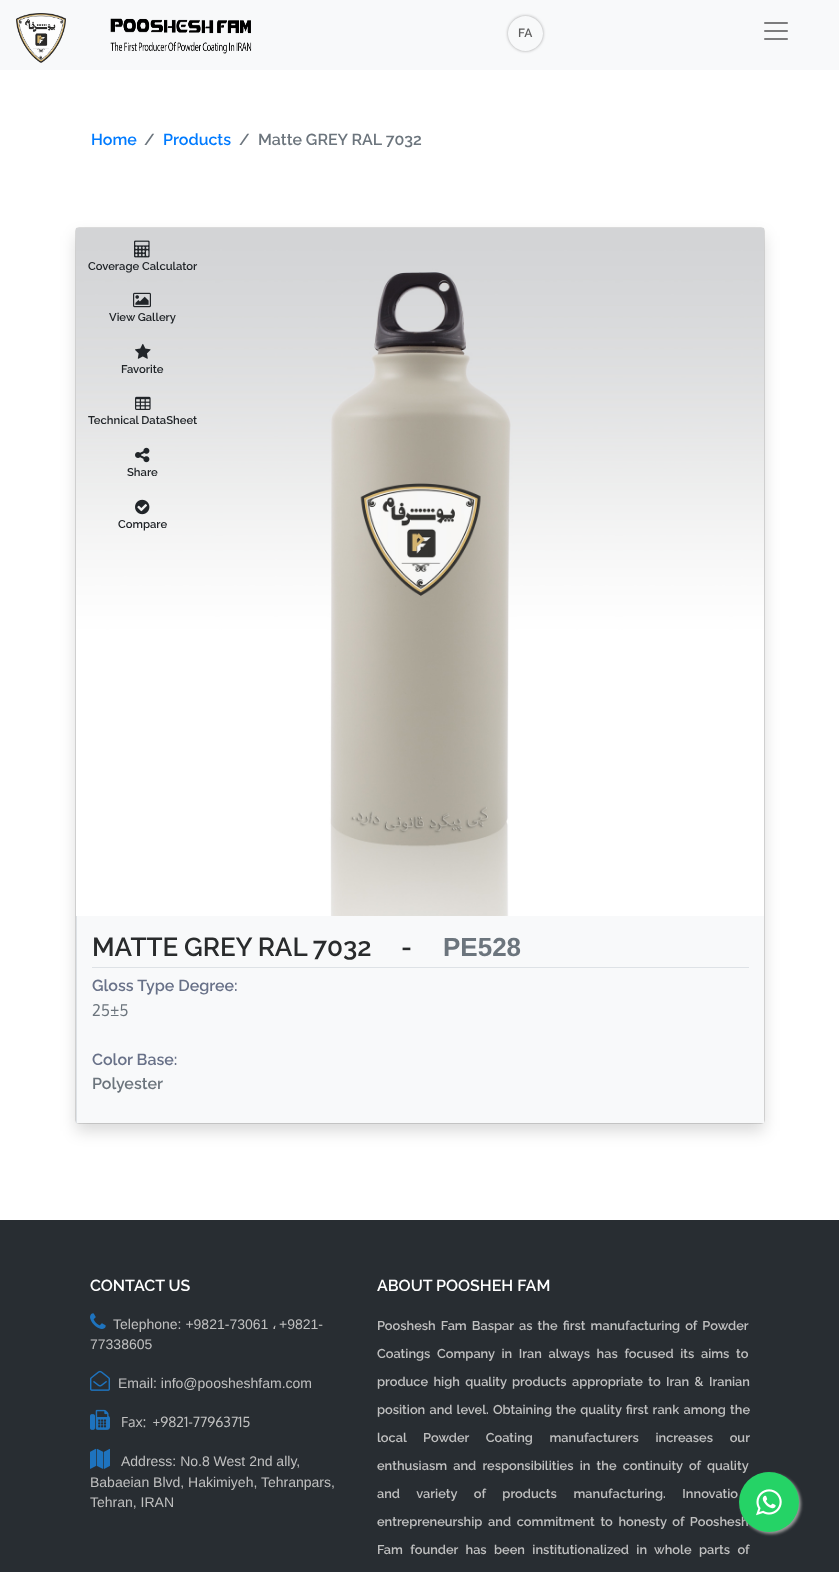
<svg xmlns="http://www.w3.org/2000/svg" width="839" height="1572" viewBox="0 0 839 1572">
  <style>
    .t1 { font: 100 12px Raleway; fill: #5d5d5d; }
    .t2 { font: 100 16px Raleway; fill: #007bff; }
    .t3 { font: 100 16px Raleway; fill: #6c757d; }
    .t4 { font: 100 11.25px Raleway; fill: #212529; }
    .t5 { font: 100 26px Raleway; fill: #292b2c; }
    .t6 { font: bold 26px Liberation Sans; fill: #6c757d; }
    .t7 { font: 100 16px Raleway; fill: #687188; }
    .t8 { font: 16px Oxygen; fill: #6c757d; }
    .t9 { font: 100 16px Raleway; fill: #fff; }
    .t10 { font: 14px Liberation Sans; fill: #c0c0c0; }
    .t11 { font: 14px DejaVu Sans; fill: #c0c0c0; }
    .t12 { font: 14px Oxygen; fill: #c0c0c0; }
    .t13 { font: 100 12.8px Raleway; fill: #c0c0c0; }
  </style>
  <defs>
    <clipPath id="clip1"><path d="M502 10H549V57H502ZM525.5 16C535 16 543 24 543 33.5C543 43 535 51 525.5 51C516 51 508 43 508 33.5C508 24 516 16 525.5 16Z" clip-rule="evenodd"/></clipPath>
  </defs>
  <rect width="100%" height="100%" fill="#fff"/>
  <rect x="0" y="0" width="839" height="70" fill="#f8f9fa"/>
  <image x="16" y="13" width="50" height="50" href="images/1.png"/>
  <image x="110" y="18" width="142" height="36" href="images/2.png"/>
  <g clip-path="url(#clip1)">
    <rect x="508" y="16" width="35" height="35" rx="17.5" fill="#a4a4a5" filter="blur(1.5px)"/>
  </g>
  <text x="518" y="37" class="t1">FA</text>
  <image x="764" y="22" width="24" height="18" href="images/3.png"/>
  <text x="91" y="145" class="t2">Home</text>
  <text x="144" y="145" class="t3">/</text>
  <text x="163" y="145" class="t2">Products</text>
  <text x="239" y="145" class="t3">/</text>
  <text x="258" y="145" class="t3">Matte GREY RAL 7032</text>
  <rect x="75.5" y="227.5" width="689" height="896" rx="3.5" fill="none" stroke="#dfdfdf"/>
  <rect x="76" y="236" width="688" height="895" fill="#00000026" filter="blur(8px)"/>
  <rect x="77" y="916" width="687" height="207" fill="#f8f9fa"/>
  <image x="76" y="228" width="688" height="688" href="images/4.png"/>
  <image x="134" y="240" width="16" height="18" href="images/5.png"/>
  <text x="88" y="270" class="t4">Coverage Calculator</text>
  <image x="133" y="292" width="18" height="16" href="images/6.png"/>
  <text x="109" y="321" class="t4">View Gallery</text>
  <image x="135" y="343" width="16" height="16" href="images/7.png"/>
  <text x="121" y="373" class="t4">Favorite</text>
  <image x="135" y="396" width="16" height="14" href="images/8.png"/>
  <text x="88" y="424" class="t4">Technical DataSheet</text>
  <image x="135" y="447" width="15" height="16" href="images/9.png"/>
  <text x="127" y="476" class="t4">Share</text>
  <image x="135" y="499" width="15" height="16" href="images/10.png"/>
  <text x="118" y="528" class="t4">Compare</text>
  <rect x="76" y="916" width="1" height="207" fill="#dee2e6"/>
  <rect x="92" y="967" width="657" height="1" fill="#dee2e6"/>
  <text x="92" y="956" word-spacing="-0.5" class="t5">MATTE GREY RAL 7032</text>
  <text x="401" y="956" class="t5">-</text>
  <text x="443" y="956" class="t6">PE528</text>
  <text x="92" y="991" class="t7">Gloss Type Degree:</text>
  <text x="92" y="1016" class="t8">25±5</text>
  <text x="92" y="1065" class="t7">Color Base:</text>
  <text x="92" y="1089" class="t3">Polyester</text>
  <rect x="0" y="1220" width="839" height="352" fill="#282d32"/>
  <text x="90" y="1291" class="t9">CONTACT US</text>
  <image x="90" y="1313" width="16" height="16" href="images/11.png"/>
  <text x="113" y="1329" class="t10">Telephone: +9821-73061</text>
  <text x="272" y="1329" class="t11">،</text>
  <text x="279" y="1329" class="t10">+9821-</text>
  <text x="90" y="1349" class="t10">77338605</text>
  <image x="90" y="1370" width="20" height="21" href="images/12.png"/>
  <text x="118" y="1388" class="t10">Email: info@poosheshfam.com</text>
  <image x="90" y="1409" width="20" height="21" href="images/13.png"/>
  <text x="121" y="1427" word-spacing="3" class="t12">Fax: +9821-77963715</text>
  <image x="90" y="1448" width="20" height="21" href="images/14.png"/>
  <text x="121" y="1466" class="t10">Address: No.8 West 2nd ally,</text>
  <text x="90" y="1487" class="t10">Babaeian Blvd, Hakimiyeh, Tehranpars,</text>
  <text x="90" y="1507" class="t10">Tehran, IRAN</text>
  <text x="377" y="1291" class="t9">ABOUT POOSHEH FAM</text>
  <text x="377" y="1330" word-spacing="2" class="t13">Pooshesh Fam Baspar as the first manufacturing of Powder</text>
  <text x="377" y="1358" word-spacing="3.5" class="t13">Coatings Company in Iran always has focused its aims to</text>
  <text x="377" y="1386" word-spacing="2.25" class="t13">produce high quality products appropriate to Iran &amp; Iranian</text>
  <text x="377" y="1414" word-spacing="1" class="t13">position and level. Obtaining the quality first rank among the</text>
  <text x="377" y="1442" word-spacing="13.5" class="t13">local Powder Coating manufacturers increases our</text>
  <text x="377" y="1470" word-spacing="3" class="t13">enthusiasm and responsibilities in the continuity of quality</text>
  <text x="377" y="1498" word-spacing="13.5" class="t13">and variety of products manufacturing. Innovatio</text>
  <text x="377" y="1526" word-spacing="2.5" class="t13">entrepreneurship and commitment to honesty of Pooshesh</text>
  <text x="377" y="1554" word-spacing="4.25" class="t13">Fam founder has been institutionalized in whole parts of</text>
  <rect x="741" y="1474" width="60" height="60" rx="30" fill="#999" filter="blur(1.5px)"/>
  <circle cx="769" cy="1502" r="30" fill="#25d366"/>
  <image x="756" y="1489" width="26" height="27" href="images/15.png"/>
</svg>
